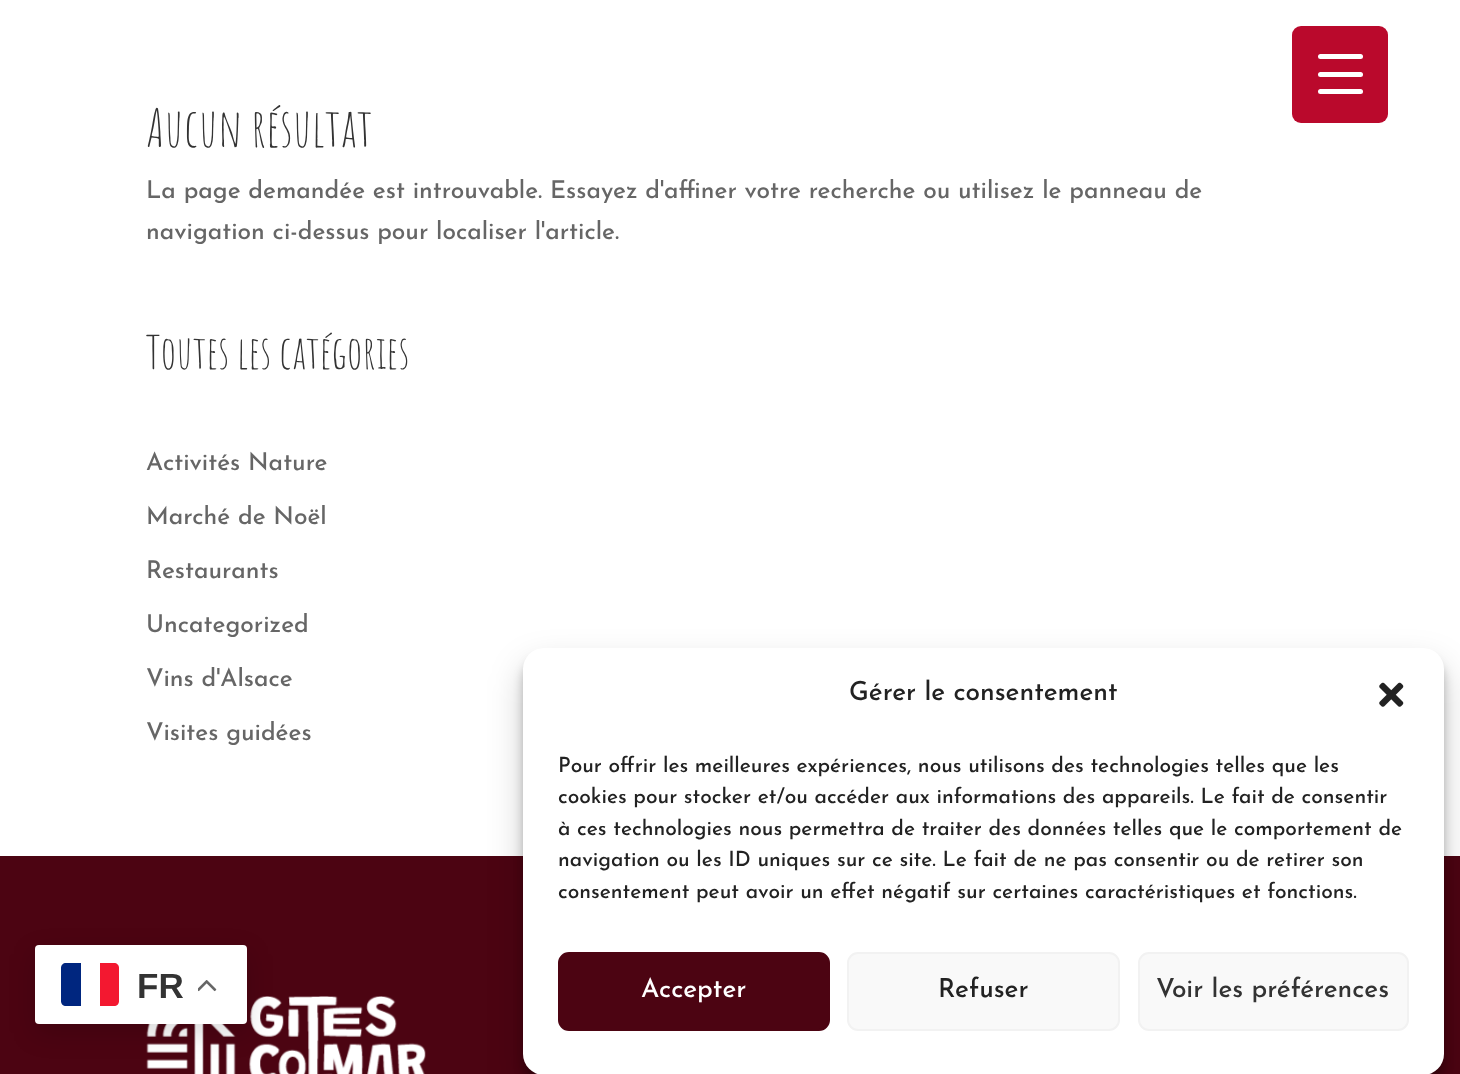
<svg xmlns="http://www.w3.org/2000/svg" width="1460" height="1074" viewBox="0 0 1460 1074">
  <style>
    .t1 { font: 52.5px Amatic SC; fill: #333; }
    .t2 { font: 500 24.5px Josefin Sans; fill: #666; }
    .t3 { font: 45.5px Amatic SC; fill: #333; }
    .t4 { font: bold 35px Liberation Sans; fill: #333; }
    .t5 { font: 500 26.25px Josefin Sans; fill: #222; }
    .t6 { font: 500 21px Josefin Sans; fill: #222; }
    .t7 { font: 500 26.25px Josefin Sans; fill: #fff; }
    .t8 { font: 500 26.25px Josefin Sans; fill: #333; }
  </style>
  <rect width="100%" height="100%" fill="#fff"/>
  <rect x="1292" y="26" width="96" height="97" rx="9" fill="#ba092c"/>
  <rect x="1318" y="72" width="45" height="5" rx="2.5" fill="#fff"/>
  <rect x="1318" y="54" width="45" height="5" rx="2.5" fill="#fff"/>
  <rect x="1318" y="89" width="45" height="5" rx="2.5" fill="#fff"/>
  <text x="146" y="147" class="t1">Aucun résultat</text>
  <text x="146" y="198" class="t2">La page demandée est introuvable. Essayez d'affiner votre recherche ou utilisez le panneau de</text>
  <text x="146" y="239" class="t2">navigation ci-dessus pour localiser l'article.</text>
  <text x="146" y="369" class="t3">Toutes les catégories</text>
  <text x="146" y="470" class="t2">Activités Nature</text>
  <text x="146" y="524" class="t2">Marché de Noël</text>
  <text x="146" y="578" class="t2">Restaurants</text>
  <text x="146" y="632" class="t2">Uncategorized</text>
  <text x="146" y="686" class="t2">Vins d'Alsace</text>
  <text x="146" y="740" class="t2">Visites guidées</text>
  <rect x="0" y="856" width="1460" height="218" fill="#4c0412"/>
  <image x="146" y="996" width="280" height="78" href="images/1.png"/>
  <rect x="35" y="954" width="212" height="79" rx="4" fill="#00000026" filter="blur(13px)"/>
  <rect x="35" y="945" width="212" height="79" rx="4" fill="#fff"/>
  <path d="M66 963H81V1006H66C63 1006 61 1004 61 1001V968C61 965 63 963 66 963Z" fill="#00267f"/>
  <path d="M100 963H114C117 963 119 965 119 968V1001C119 1004 117 1006 114 1006H100Z" fill="#f31830"/>
  <text x="137" y="998" class="t4">FR</text>
  <image x="198" y="980" width="19" height="12" href="images/2.png"/>
  <rect x="523" y="658" width="921" height="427" rx="21" fill="#0000003b" filter="blur(5px)"/>
  <rect x="523" y="665" width="921" height="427" rx="21" fill="#00000030" filter="blur(17.5px)"/>
  <rect x="523" y="648" width="921" height="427" rx="21" fill="#fff"/>
  <text x="849" y="700" class="t5">Gérer le consentement</text>
  <image x="1379" y="682" width="25" height="25" href="images/3.png"/>
  <text x="558" y="772" class="t6">Pour offrir les meilleures expériences, nous utilisons des technologies telles que les</text>
  <text x="558" y="803" class="t6">cookies pour stocker et/ou accéder aux informations des appareils. Le fait de consentir</text>
  <text x="558" y="835" class="t6">à ces technologies nous permettra de traiter des données telles que le comportement de</text>
  <text x="558" y="866" class="t6">navigation ou les ID uniques sur ce site. Le fait de ne pas consentir ou de retirer son</text>
  <text x="558" y="898" class="t6">consentement peut avoir un effet négatif sur certaines caractéristiques et fonctions.</text>
  <rect x="559" y="953" width="270" height="77" rx="10" fill="#4c0412" stroke="#4c0412" stroke-width="2"/>
  <text x="641" y="997" class="t7">Accepter</text>
  <rect x="848" y="953" width="271" height="77" rx="10" fill="#f9f9f9" stroke="#f2f2f2" stroke-width="2"/>
  <text x="938" y="997" class="t5">Refuser</text>
  <rect x="1139" y="953" width="269" height="77" rx="10" fill="#f9f9f9" stroke="#f2f2f2" stroke-width="2"/>
  <text x="1156" y="997" class="t8">Voir les préférences</text>
</svg>
